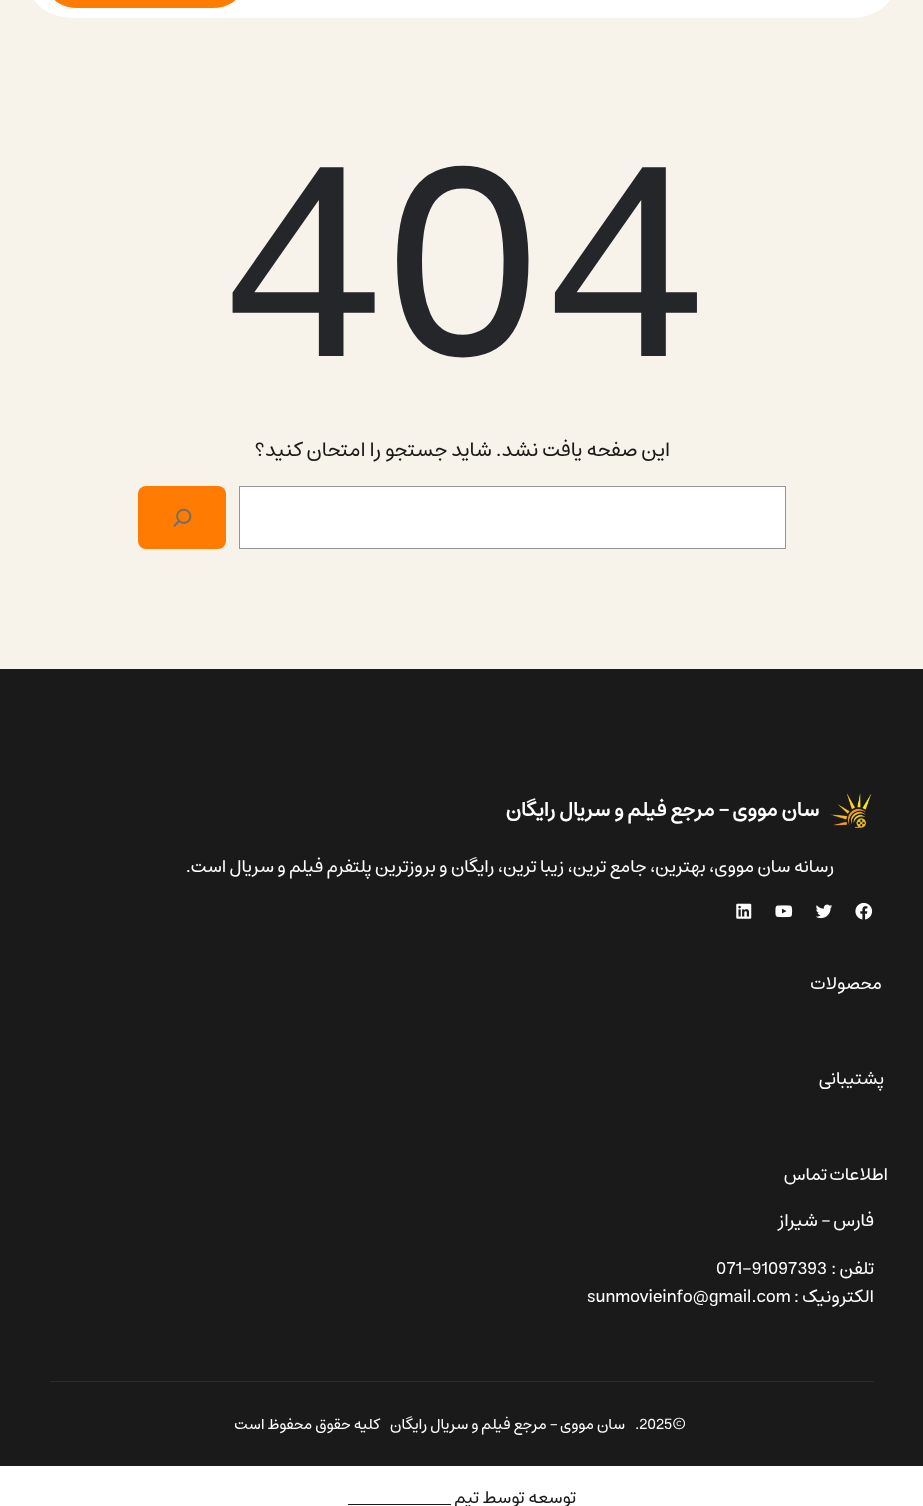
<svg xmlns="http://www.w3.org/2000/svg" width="923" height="1506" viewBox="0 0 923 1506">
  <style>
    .t1 { font: 277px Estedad; letter-spacing: -1px; fill: #25262a; }
    .t2 { font: 20px Estedad; direction: rtl; fill: #1b1917; }
    .t3 { font: bold 20px Estedad; direction: rtl; fill: #fff; }
    .t4 { font: 17.5px Estedad; direction: rtl; fill: #fff; }
    .t5 { font: 17.5px Estedad; letter-spacing: 1.25px; direction: rtl; fill: #fff; }
    .t6 { font: 17.5px Estedad; fill: #fff; }
    .t7 { font: 15px Estedad; fill: #fff; }
    .t8 { font: 15px Estedad; direction: rtl; fill: #fff; }
    .t9 { font: 17.5px Estedad; direction: rtl; fill: #1b1917; }
  </style>
  <rect width="100%" height="100%" fill="#fff"/>
  <rect x="0" y="0" width="923" height="669" fill="#f7f3eb"/>
  <rect x="30" y="-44" width="864" height="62" rx="44" fill="#fff"/>
  <rect x="50" y="-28" width="190" height="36" rx="27.5" fill="#ff7b01"/>
  <text x="220" y="356" class="t1">404</text>
  <text x="670" y="456" class="t2">این صفحه یافت نشد. شاید جستجو را امتحان کنید؟</text>
  <rect x="239.5" y="486.5" width="546" height="62" fill="#fff" stroke="#949494"/>
  <rect x="138" y="486" width="88" height="63" rx="8" fill="#ff7b01"/>
  <image x="173" y="508" width="19" height="19" href="images/1.png"/>
  <rect x="0" y="669" width="923" height="797" fill="#1a1a1a"/>
  <image x="830" y="793" width="42" height="35" href="images/2.png"/>
  <text x="819" y="816" class="t3">سان مووی – مرجع فیلم و سریال رایگان</text>
  <text x="834" y="872" class="t4">رسانه سان مووی، بهترین، جامع ترین، زیبا ترین، رایگان و بروزترین پلتفرم فیلم و سریال است.</text>
  <image x="855" y="902" width="18" height="18" href="images/3.png"/>
  <image x="815" y="904" width="18" height="15" href="images/4.png"/>
  <image x="775" y="905" width="18" height="13" href="images/5.png"/>
  <image x="736" y="903" width="16" height="16" href="images/6.png"/>
  <text x="882" y="989" class="t5">محصولات</text>
  <text x="884" y="1084" class="t5">پشتیبانی</text>
  <text x="888" y="1180" word-spacing="-1" class="t5">اطلاعات تماس</text>
  <text x="874" y="1226" class="t4">فارس – شیراز</text>
  <text x="874" y="1274" class="t4">تلفن :</text>
  <text x="716" y="1274" class="t6">071-91097393</text>
  <text x="874" y="1302" class="t4">الکترونیک :</text>
  <text x="587" y="1302" class="t6">sunmovieinfo@gmail.com</text>
  <rect x="50" y="1381" width="824" height="1" fill="#2c2c2c"/>
  <text x="635" y="1429" class="t7">.2025©</text>
  <text x="625" y="1429" class="t8">سان مووی – مرجع فیلم و سریال رایگان</text>
  <text x="380" y="1429" class="t8">کلیه حقوق محفوظ است</text>
  <text x="576" y="1503" class="t9">توسعه توسط تیم</text>
  <rect x="348" y="1504" width="103" height="1" fill="#1b1917"/>
</svg>
